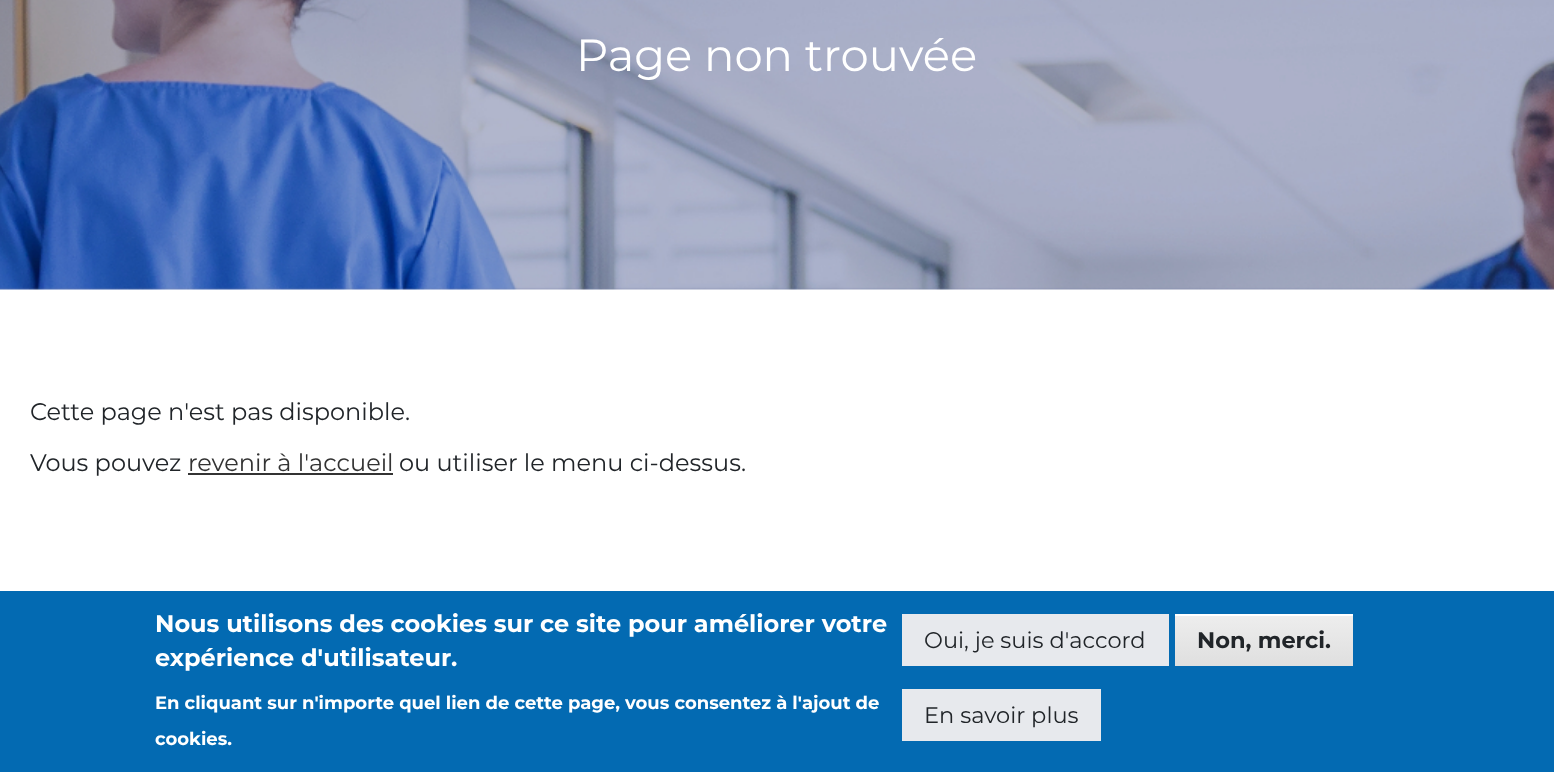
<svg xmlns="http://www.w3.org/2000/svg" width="1554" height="772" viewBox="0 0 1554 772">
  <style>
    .t1 { font: 45px Montserrat; fill: #fff; }
    .t2 { font: 24px Montserrat; fill: #212529; }
    .t3 { font: 24px Montserrat; fill: #333; }
    .t4 { font: bold 24px Montserrat; fill: #fff; }
    .t5 { font: bold 18px Montserrat; fill: #fff; }
    .t6 { font: 22.5px Montserrat; fill: #212529; }
    .t7 { font: bold 22.5px Montserrat; fill: #212529; }
  </style>
  <defs>
    <linearGradient id="g1" gradientUnits="userSpaceOnUse" x1="1264" y1="614" x2="1264" y2="666"><stop offset="0.05" stop-color="#ededed"/><stop offset="1" stop-color="#dfdfdf"/></linearGradient>
  </defs>
  <rect width="100%" height="100%" fill="#fff"/>
  <image x="0" y="0" width="1554" height="290" href="images/1.png"/>
  <text x="576" y="71" class="t1">Page non trouvée</text>
  <text x="30" y="420" class="t2">Cette page n'est pas disponible.</text>
  <text x="30" y="471" class="t2">Vous pouvez</text>
  <text x="188" y="471" class="t3">revenir à l'accueil</text>
  <rect x="188" y="473" width="205" height="2" fill="#333"/>
  <text x="399" y="471" class="t2">ou utiliser le menu ci-dessus.</text>
  <rect x="0" y="591" width="1554" height="181" fill="#036ab2"/>
  <text x="155" y="632" class="t4">Nous utilisons des cookies sur ce site pour améliorer votre</text>
  <text x="155" y="666" class="t4">expérience d'utilisateur.</text>
  <text x="155" y="709" class="t5">En cliquant sur n'importe quel lien de cette page, vous consentez à l'ajout de</text>
  <text x="155" y="745" class="t5">cookies.</text>
  <rect x="902" y="614" width="267" height="52" fill="#e7e9ed"/>
  <text x="924" y="648" class="t6">Oui, je suis d'accord</text>
  <rect x="1175" y="616" width="178" height="50" fill="url(#g1)"/>
  <rect x="1175" y="614" width="178" height="2" fill="#fff"/>
  <text x="1197" y="648" class="t7">Non, merci.</text>
  <rect x="902" y="689" width="199" height="52" fill="#e7e9ed"/>
  <text x="924" y="723" class="t6">En savoir plus</text>
</svg>
